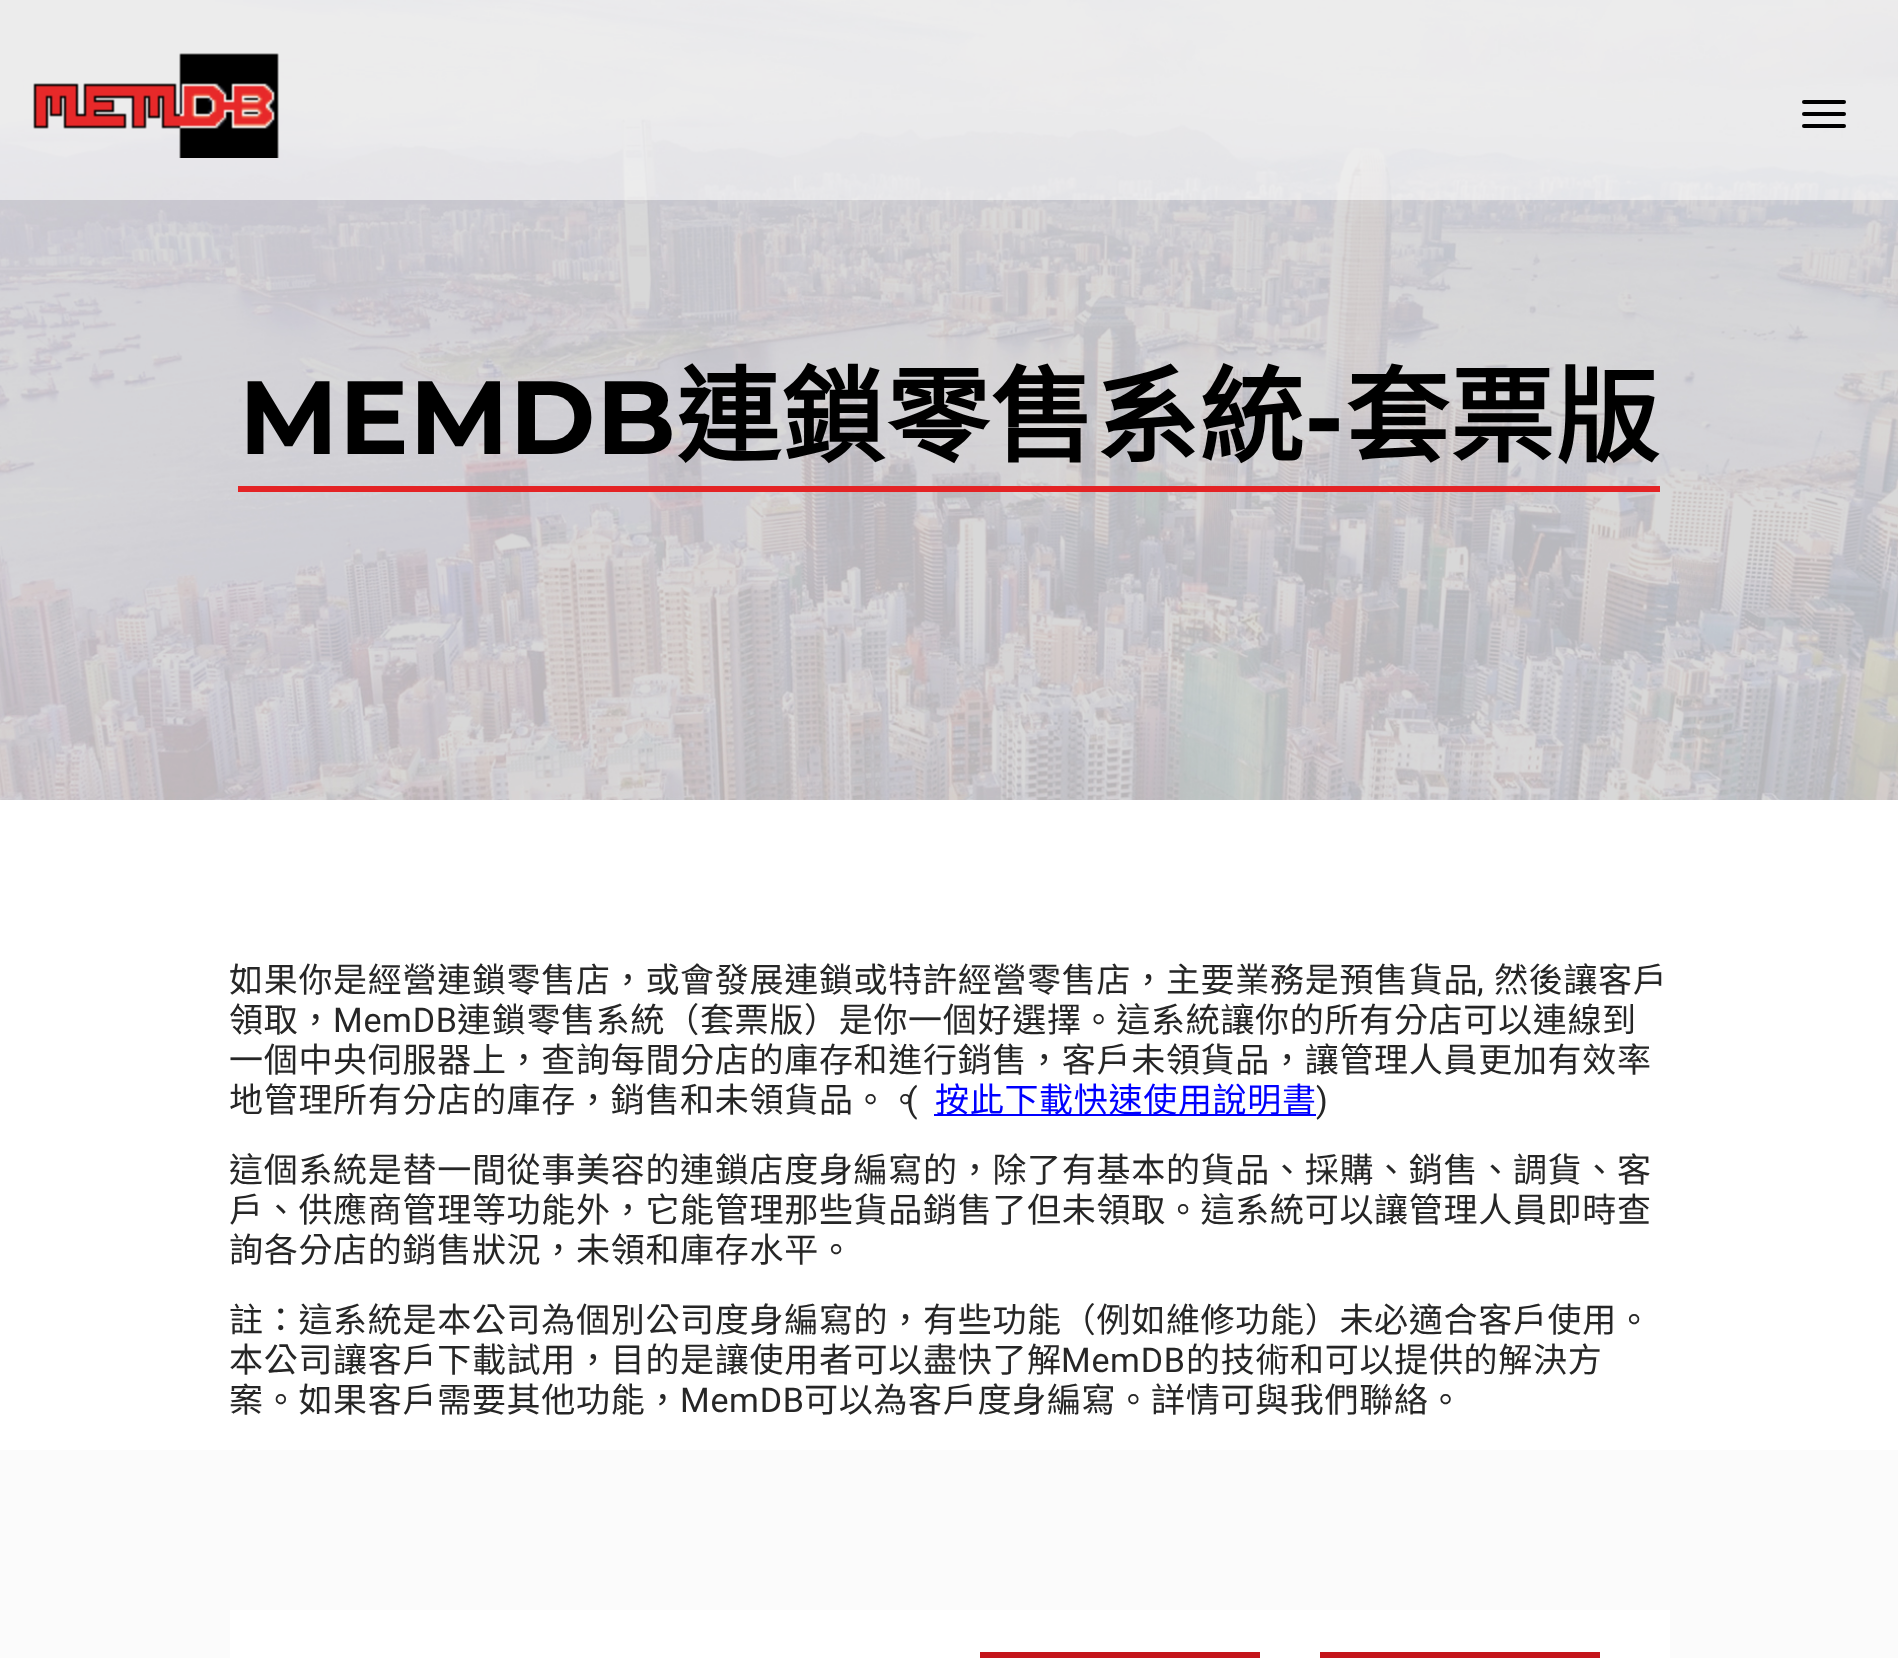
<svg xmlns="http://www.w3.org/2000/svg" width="1898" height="1658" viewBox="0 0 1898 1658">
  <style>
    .t1 { font: bold 104px Montserrat; letter-spacing: 0.7px; fill: #000; }
    .t2 { font: bold 104px Noto Sans CJK TC; letter-spacing: 0.7px; fill: #000; }
    .t3 { font: 34px Noto Sans CJK TC; letter-spacing: 0.7px; fill: #262626; }
    .t4 { font: 34px Roboto; letter-spacing: 0.7px; fill: #262626; }
    .t5 { font: 34px Noto Sans CJK TC; letter-spacing: 0.7px; fill: #00f; }
  </style>
  <rect width="100%" height="100%" fill="#fff"/>
  <image x="0" y="0" width="1898" height="800" href="images/2.png"/>
  <rect x="0" y="0" width="1898" height="200" fill="#ffffff85"/>
  <image x="33" y="53" width="246" height="105" href="images/1.png"/>
  <rect x="1802" y="100" width="44" height="4" rx="2" fill="#000"/>
  <rect x="1802" y="112" width="44" height="4" rx="2" fill="#000"/>
  <rect x="1802" y="124" width="44" height="4" rx="2" fill="#000"/>
  <rect x="238" y="486" width="1422" height="6" fill="#e42325"/>
  <text x="239" y="454" class="t1">MEMDB</text>
  <text x="676" y="454" class="t2">連鎖零售系統</text>
  <text x="1304" y="454" class="t1">-</text>
  <text x="1345" y="454" class="t2">套票版</text>
  <text x="229" y="992" class="t3">如果你是經營連鎖零售店，或會發展連鎖或特許經營零售店，主要業務是預售貨品</text>
  <text x="1477" y="992" class="t4">,</text>
  <text x="1494" y="992" class="t3">然後讓客戶</text>
  <text x="229" y="1032" class="t3">領取，</text>
  <text x="333" y="1032" class="t4">MemDB</text>
  <text x="457" y="1032" class="t3">連鎖零售系統（套票版）是你一個好選擇。這系統讓你的所有分店可以連線到</text>
  <text x="229" y="1072" class="t3">一個中央伺服器上，查詢每間分店的庫存和進行銷售，客戶未領貨品，讓管理人員更加有效率</text>
  <text x="229" y="1112" class="t3">地管理所有分店的庫存，銷售和未領貨品。。</text>
  <text x="906" y="1112" class="t4">(</text>
  <rect x="934" y="1114" width="382" height="2" fill="#00f"/>
  <text x="935" y="1112" class="t5">按此下載快速使用說明書</text>
  <text x="1316" y="1112" class="t4">)</text>
  <text x="229" y="1182" class="t3">這個系統是替一間從事美容的連鎖店度身編寫的，除了有基本的貨品、採購、銷售、調貨、客</text>
  <text x="229" y="1222" class="t3">戶、供應商管理等功能外，它能管理那些貨品銷售了但未領取。這系統可以讓管理人員即時查</text>
  <text x="229" y="1262" class="t3">詢各分店的銷售狀況，未領和庫存水平。</text>
  <text x="229" y="1332" class="t3">註：這系統是本公司為個別公司度身編寫的，有些功能（例如維修功能）未必適合客戶使用。</text>
  <text x="229" y="1372" class="t3">本公司讓客戶下載試用，目的是讓使用者可以盡快了解</text>
  <text x="1061" y="1372" class="t4">MemDB</text>
  <text x="1186" y="1372" class="t3">的技術和可以提供的解決方</text>
  <text x="229" y="1412" class="t3">案。如果客戶需要其他功能，</text>
  <text x="680" y="1412" class="t4">MemDB</text>
  <text x="804" y="1412" class="t3">可以為客戶度身編寫。詳情可與我們聯絡。</text>
  <rect x="0" y="1450" width="1898" height="208" fill="#fbfbfb"/>
  <rect x="230" y="1610" width="1440" height="48" fill="#fff"/>
  <rect x="980" y="1652" width="280" height="6" fill="#c5161c"/>
  <rect x="1320" y="1652" width="280" height="6" fill="#c5161c"/>
</svg>
